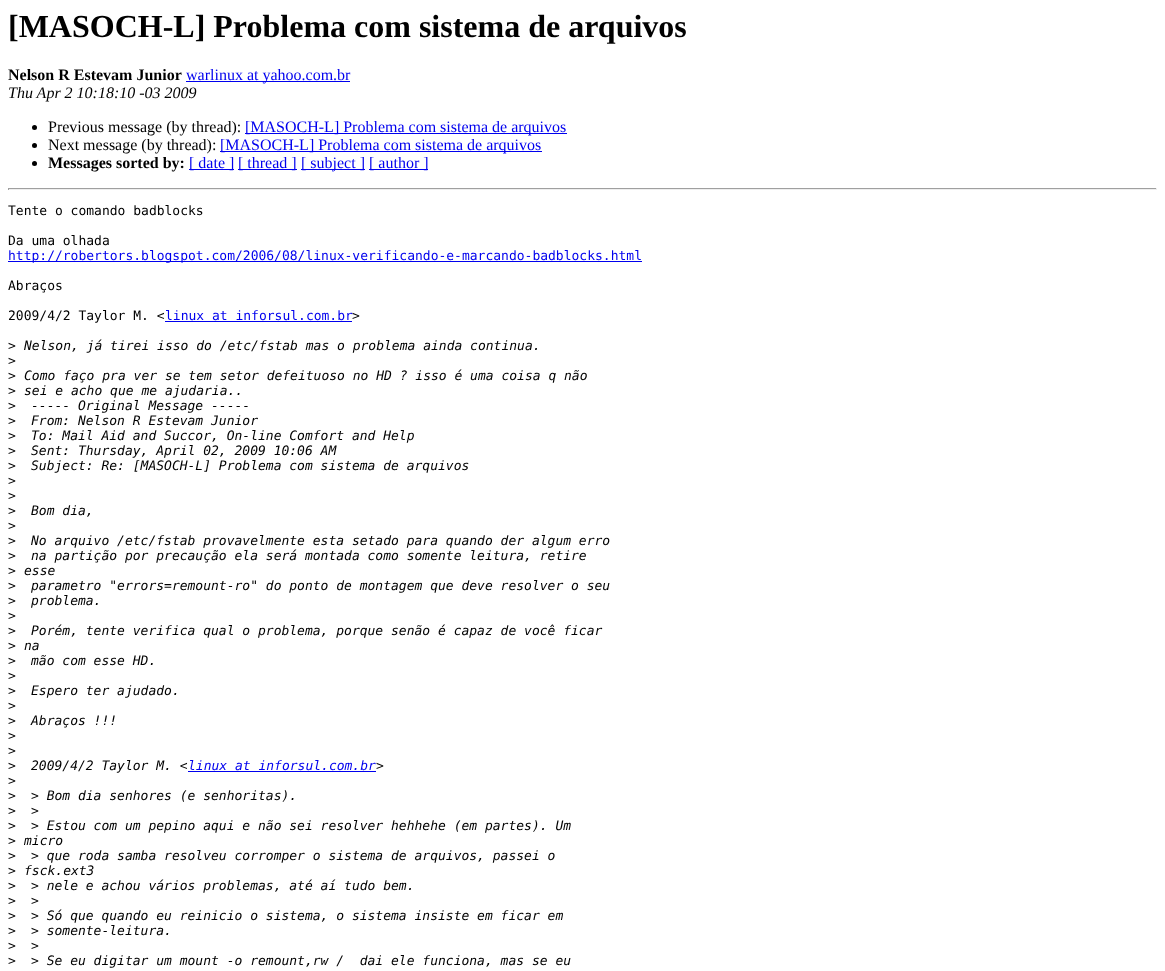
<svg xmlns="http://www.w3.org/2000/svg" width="1165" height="971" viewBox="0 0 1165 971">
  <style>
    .t1 { font: bold 32px Liberation Serif; fill: #000; }
    .t2 { font: bold 16px Liberation Serif; fill: #000; }
    .t3 { font: 16px Liberation Serif; fill: #00e; }
    .t4 { font: italic 16px Liberation Serif; fill: #000; }
    .t5 { font: 16px Liberation Serif; fill: #000; }
    .t6 { font: 13px DejaVu Sans Mono; fill: #000; }
    .t7 { font: 13px DejaVu Sans Mono; fill: #00e; }
    .t8 { font: italic 13px DejaVu Sans Mono; fill: #000; }
    .t9 { font: italic 13px DejaVu Sans Mono; fill: #00e; }
  </style>
  <rect width="100%" height="100%" fill="#fff"/>
  <text x="8" y="37" class="t1">[MASOCH-L] Problema com sistema de arquivos</text>
  <text x="8" y="80" class="t2">Nelson R Estevam Junior</text>
  <rect x="186" y="81" width="164" height="1" fill="#00e"/>
  <text x="186" y="80" class="t3">warlinux at yahoo.com.br</text>
  <text x="8" y="98" class="t4">Thu Apr 2 10:18:10 -03 2009</text>
  <circle cx="34.5" cy="127.5" r="2.5" fill="#000"/>
  <text x="48" y="132" class="t5">Previous message (by thread):</text>
  <rect x="245" y="133" width="322" height="1" fill="#00e"/>
  <text x="245" y="132" class="t3">[MASOCH-L] Problema com sistema de arquivos</text>
  <circle cx="34.5" cy="145.5" r="2.5" fill="#000"/>
  <text x="48" y="150" class="t5">Next message (by thread):</text>
  <rect x="220" y="151" width="322" height="1" fill="#00e"/>
  <text x="220" y="150" class="t3">[MASOCH-L] Problema com sistema de arquivos</text>
  <circle cx="34.5" cy="163.5" r="2.5" fill="#000"/>
  <text x="48" y="168" class="t2">Messages sorted by:</text>
  <rect x="189" y="169" width="45" height="1" fill="#00e"/>
  <text x="189" y="168" class="t3">[ date ]</text>
  <rect x="238" y="169" width="59" height="1" fill="#00e"/>
  <text x="238" y="168" class="t3">[ thread ]</text>
  <rect x="301" y="169" width="64" height="1" fill="#00e"/>
  <text x="301" y="168" class="t3">[ subject ]</text>
  <rect x="369" y="169" width="59" height="1" fill="#00e"/>
  <text x="369" y="168" class="t3">[ author ]</text>
  <rect x="8" y="188" width="1149" height="1" fill="#9f9f9f"/>
  <rect x="1156" y="188" width="1" height="2" fill="#eee"/>
  <rect x="8" y="189" width="1149" height="1" fill="#eee"/>
  <rect x="8" y="188" width="1" height="2" fill="#9f9f9f"/>
  <text x="8" y="215" class="t6">Tente o comando badblocks</text>
  <text x="8" y="245" class="t6">Da uma olhada</text>
  <rect x="8" y="261" width="634" height="1" fill="#00e"/>
  <text x="8" y="260" class="t7">http://robertors.blogspot.com/2006/08/linux-verificando-e-marcando-badblocks.html</text>
  <text x="8" y="290" class="t6">Abraços</text>
  <text x="8" y="320" class="t6">2009/4/2 Taylor M. &lt;</text>
  <text x="165" y="320" class="t7">linux at inforsul.com.br</text>
  <rect x="165" y="321" width="187" height="1" fill="#00e"/>
  <text x="352" y="320" class="t6">&gt;</text>
  <text x="8" y="350" class="t6">&gt;</text>
  <text x="24" y="350" class="t8">Nelson, já tirei isso do /etc/fstab mas o problema ainda continua.</text>
  <text x="8" y="365" class="t6">&gt;</text>
  <text x="8" y="380" class="t6">&gt;</text>
  <text x="24" y="380" class="t8">Como faço pra ver se tem setor defeituoso no HD ? isso é uma coisa q não</text>
  <text x="8" y="395" class="t6">&gt;</text>
  <text x="24" y="395" class="t8">sei e acho que me ajudaria..</text>
  <text x="8" y="410" class="t6">&gt;</text>
  <text x="31" y="410" class="t8">----- Original Message -----</text>
  <text x="8" y="425" class="t6">&gt;</text>
  <text x="31" y="425" class="t8">From: Nelson R Estevam Junior</text>
  <text x="8" y="440" class="t6">&gt;</text>
  <text x="31" y="440" class="t8">To: Mail Aid and Succor, On-line Comfort and Help</text>
  <text x="8" y="455" class="t6">&gt;</text>
  <text x="31" y="455" class="t8">Sent: Thursday, April 02, 2009 10:06 AM</text>
  <text x="8" y="470" class="t6">&gt;</text>
  <text x="31" y="470" class="t8">Subject: Re: [MASOCH-L] Problema com sistema de arquivos</text>
  <text x="8" y="485" class="t6">&gt;</text>
  <text x="8" y="500" class="t6">&gt;</text>
  <text x="8" y="515" class="t6">&gt;</text>
  <text x="31" y="515" class="t8">Bom dia,</text>
  <text x="8" y="530" class="t6">&gt;</text>
  <text x="8" y="545" class="t6">&gt;</text>
  <text x="31" y="545" class="t8">No arquivo /etc/fstab provavelmente esta setado para quando der algum erro</text>
  <text x="8" y="560" class="t6">&gt;</text>
  <text x="31" y="560" class="t8">na partição por precaução ela será montada como somente leitura, retire</text>
  <text x="8" y="575" class="t6">&gt;</text>
  <text x="24" y="575" class="t8">esse</text>
  <text x="8" y="590" class="t6">&gt;</text>
  <text x="31" y="590" class="t8">parametro "errors=remount-ro" do ponto de montagem que deve resolver o seu</text>
  <text x="8" y="605" class="t6">&gt;</text>
  <text x="31" y="605" class="t8">problema.</text>
  <text x="8" y="620" class="t6">&gt;</text>
  <text x="8" y="635" class="t6">&gt;</text>
  <text x="31" y="635" class="t8">Porém, tente verifica qual o problema, porque senão é capaz de você ficar</text>
  <text x="8" y="650" class="t6">&gt;</text>
  <text x="24" y="650" class="t8">na</text>
  <text x="8" y="665" class="t6">&gt;</text>
  <text x="31" y="665" class="t8">mão com esse HD.</text>
  <text x="8" y="680" class="t6">&gt;</text>
  <text x="8" y="695" class="t6">&gt;</text>
  <text x="31" y="695" class="t8">Espero ter ajudado.</text>
  <text x="8" y="710" class="t6">&gt;</text>
  <text x="8" y="725" class="t6">&gt;</text>
  <text x="31" y="725" class="t8">Abraços !!!</text>
  <text x="8" y="740" class="t6">&gt;</text>
  <text x="8" y="755" class="t6">&gt;</text>
  <text x="8" y="770" class="t6">&gt;</text>
  <text x="31" y="770" class="t8">2009/4/2 Taylor M. &lt;</text>
  <rect x="188" y="771" width="188" height="1" fill="#00e"/>
  <text x="188" y="770" class="t9">linux at inforsul.com.br</text>
  <text x="376" y="770" class="t8">&gt;</text>
  <text x="8" y="785" class="t6">&gt;</text>
  <text x="8" y="800" class="t6">&gt;</text>
  <text x="31" y="800" class="t8">&gt; Bom dia senhores (e senhoritas).</text>
  <text x="8" y="815" class="t6">&gt;</text>
  <text x="31" y="815" class="t8">&gt;</text>
  <text x="8" y="830" class="t6">&gt;</text>
  <text x="31" y="830" class="t8">&gt; Estou com um pepino aqui e não sei resolver hehhehe (em partes). Um</text>
  <text x="8" y="845" class="t6">&gt;</text>
  <text x="24" y="845" class="t8">micro</text>
  <text x="8" y="860" class="t6">&gt;</text>
  <text x="31" y="860" class="t8">&gt; que roda samba resolveu corromper o sistema de arquivos, passei o</text>
  <text x="8" y="875" class="t6">&gt;</text>
  <text x="24" y="875" class="t8">fsck.ext3</text>
  <text x="8" y="890" class="t6">&gt;</text>
  <text x="31" y="890" class="t8">&gt; nele e achou vários problemas, até aí tudo bem.</text>
  <text x="8" y="905" class="t6">&gt;</text>
  <text x="31" y="905" class="t8">&gt;</text>
  <text x="8" y="920" class="t6">&gt;</text>
  <text x="31" y="920" class="t8">&gt; Só que quando eu reinicio o sistema, o sistema insiste em ficar em</text>
  <text x="8" y="935" class="t6">&gt;</text>
  <text x="31" y="935" class="t8">&gt; somente-leitura.</text>
  <text x="8" y="950" class="t6">&gt;</text>
  <text x="31" y="950" class="t8">&gt;</text>
  <text x="8" y="965" class="t6">&gt;</text>
  <text x="31" y="965" class="t8" xml:space="preserve">&gt; Se eu digitar um mount -o remount,rw /  dai ele funciona, mas se eu</text>
</svg>
